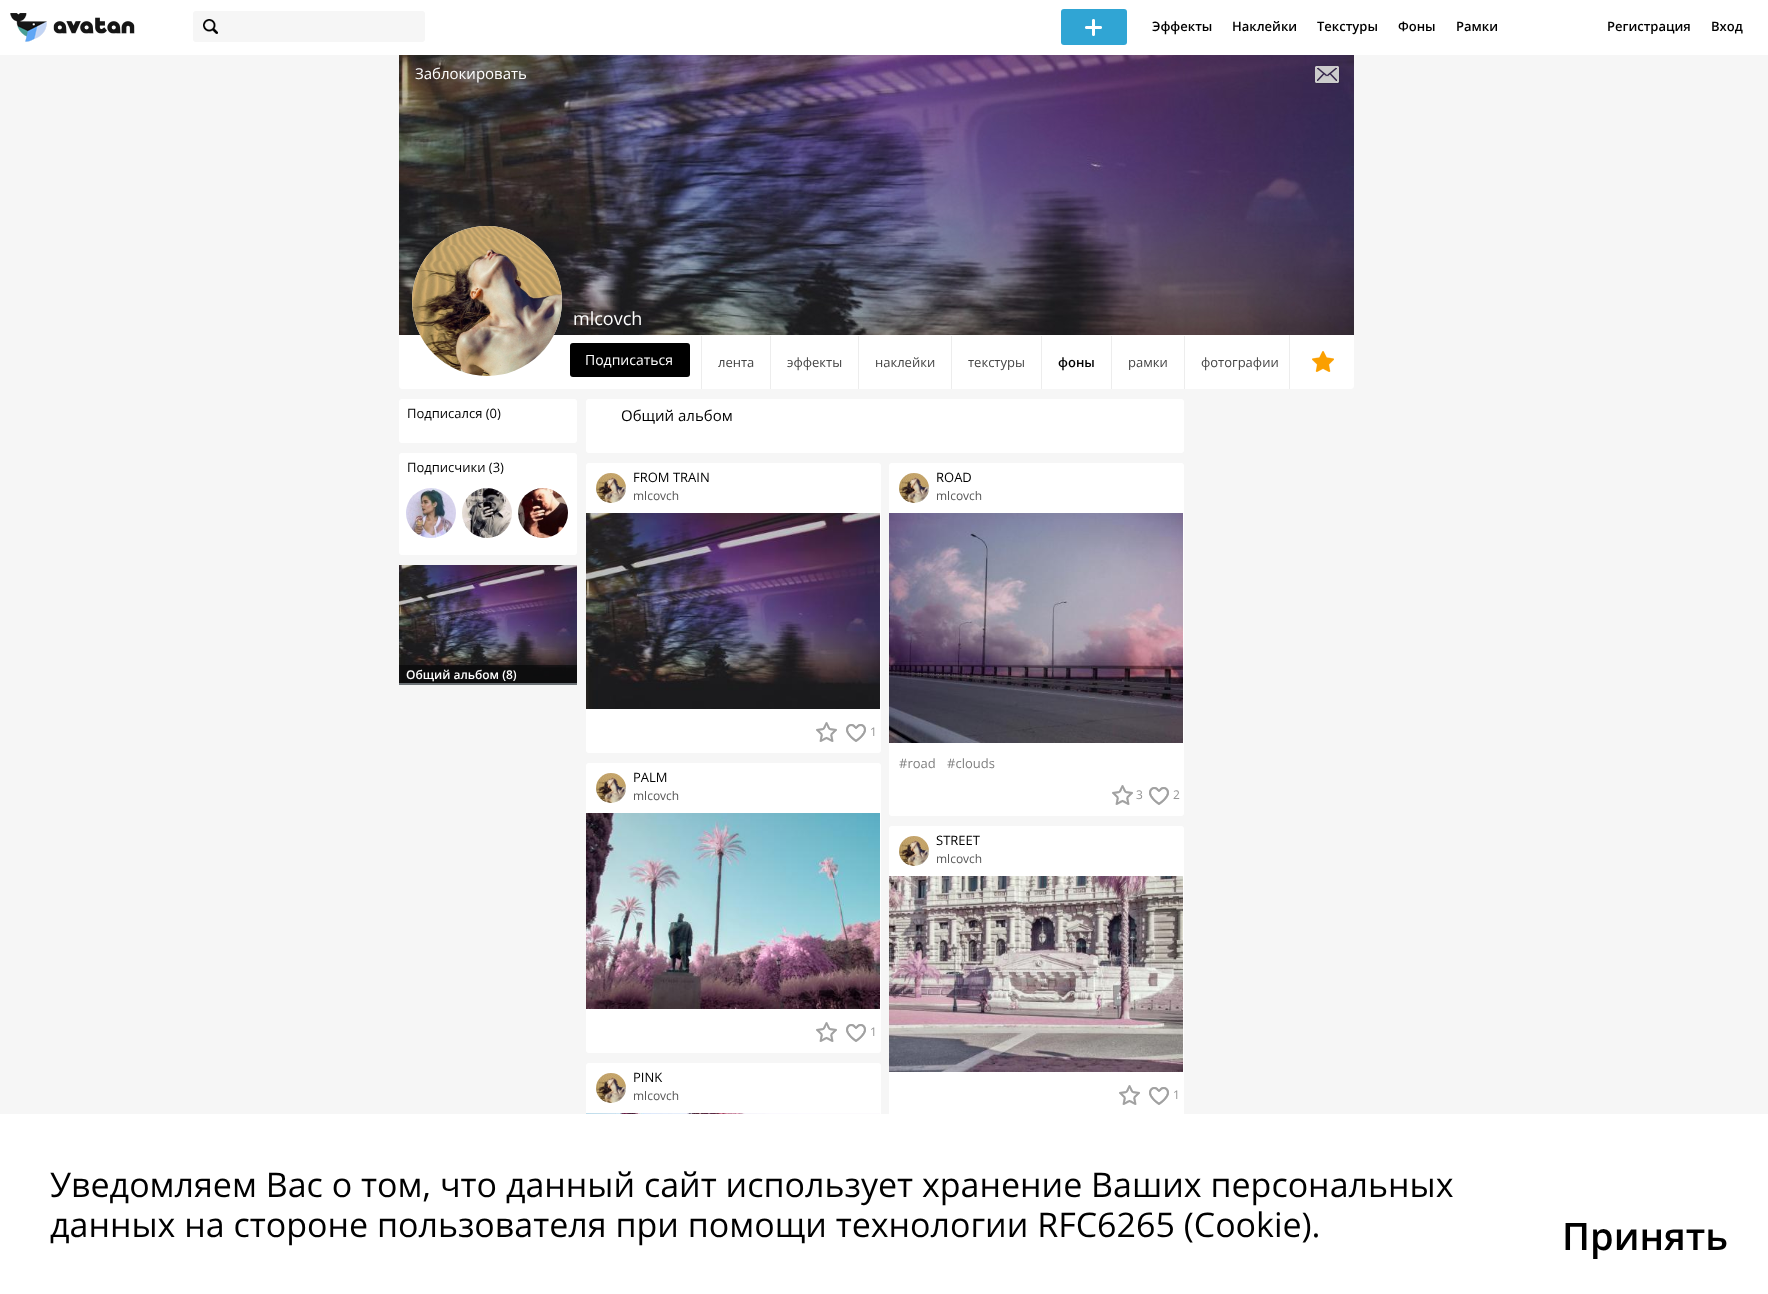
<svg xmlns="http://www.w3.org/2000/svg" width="1768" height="1294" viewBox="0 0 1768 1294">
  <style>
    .t1 { font: 600 13px Open Sans; fill: #000; }
    .t2 { font: 15px Open Sans; fill: #fff; }
    .t3 { font: 18px Open Sans; fill: #fff; }
    .t4 { font: 14px Open Sans; fill: #fff; }
    .t5 { font: 13px Open Sans; fill: #444; }
    .t6 { font: 13px Open Sans; fill: #000; }
    .t7 { font: 600 12px Open Sans; fill: #fff; }
    .t8 { font: 15px Open Sans; fill: #000; }
    .t9 { font: 12px Open Sans; fill: #555; }
    .t10 { font: 12px Open Sans; fill: #959595; }
    .t11 { font: 13px Open Sans; fill: #818181; }
    .t12 { font: 34px Open Sans; fill: #000; }
    .t13 { font: 600 38px Open Sans; fill: #000; }
  </style>
  <rect width="100%" height="100%" fill="#f6f6f6"/>
  <image x="399" y="55" width="955" height="280" href="images/4.png"/>
  <rect x="0" y="0" width="1768" height="55" fill="#0000004d" filter="blur(0.5px)"/>
  <rect x="0" y="0" width="1768" height="55" fill="#fff"/>
  <image x="10" y="13" width="125" height="29" href="images/1.png"/>
  <rect x="193" y="11" width="232" height="31" rx="3" fill="#f6f6f6"/>
  <image x="203" y="19" width="15" height="15" href="images/2.png"/>
  <rect x="1061" y="9" width="66" height="36" rx="3" fill="#30a5d4"/>
  <image x="1085" y="19" width="17" height="17" href="images/3.png"/>
  <text x="1152" y="31" class="t1">Эффекты</text>
  <text x="1232" y="31" class="t1">Наклейки</text>
  <text x="1317" y="31" class="t1">Текстуры</text>
  <text x="1398" y="31" class="t1">Фоны</text>
  <text x="1456" y="31" class="t1">Рамки</text>
  <text x="1607" y="31" class="t1">Регистрация</text>
  <text x="1711" y="31" class="t1">Вход</text>
  <text x="415" y="79" class="t2">Заблокировать</text>
  <image x="1315" y="66" width="25" height="18" href="images/5.png"/>
  <path d="M399 335H1354V386C1354 387.5 1352.5 389 1351 389H402C400.5 389 399 387.5 399 386Z" fill="#fff"/>
  <circle cx="487" cy="301" r="75" fill="#fff"/>
  <image x="412" y="226" width="150" height="150" href="images/6.png"/>
  <text x="573" y="325" class="t3">mlcovch</text>
  <rect x="570" y="343" width="120" height="34" rx="3" fill="#000"/>
  <text x="585" y="365" class="t4">Подписаться</text>
  <rect x="701" y="336" width="1" height="53" fill="#ededed"/>
  <text x="718" y="367" class="t5">лента</text>
  <rect x="770" y="336" width="1" height="53" fill="#ededed"/>
  <text x="787" y="367" class="t5">эффекты</text>
  <rect x="858" y="336" width="1" height="53" fill="#ededed"/>
  <text x="875" y="367" class="t5">наклейки</text>
  <rect x="951" y="336" width="1" height="53" fill="#ededed"/>
  <text x="968" y="367" class="t5">текстуры</text>
  <rect x="1041" y="336" width="1" height="53" fill="#ededed"/>
  <text x="1058" y="367" class="t1">фоны</text>
  <rect x="1111" y="336" width="1" height="53" fill="#ededed"/>
  <text x="1128" y="367" class="t5">рамки</text>
  <rect x="1184" y="336" width="1" height="53" fill="#ededed"/>
  <text x="1201" y="367" class="t5">фотографии</text>
  <rect x="1289" y="335" width="1" height="54" fill="#ededed"/>
  <image x="1312" y="351" width="22" height="21" href="images/7.png"/>
  <rect x="399" y="399" width="178" height="44" rx="3" fill="#fff"/>
  <text x="407" y="418" class="t6">Подписался (0)</text>
  <rect x="399" y="453" width="178" height="102" rx="3" fill="#fff"/>
  <text x="407" y="472" class="t6">Подписчики (3)</text>
  <image x="406" y="488" width="50" height="50" href="images/8.png"/>
  <image x="462" y="488" width="50" height="50" href="images/9.png"/>
  <image x="518" y="488" width="50" height="50" href="images/10.png"/>
  <rect x="399" y="683" width="178" height="2" fill="#d8e5ed"/>
  <image x="399" y="565" width="178" height="118" href="images/11.png"/>
  <rect x="399" y="665" width="178" height="20" fill="#00000080"/>
  <text x="406" y="679" class="t7">Общий альбом (8)</text>
  <rect x="586" y="399" width="598" height="54" rx="3" fill="#fff"/>
  <text x="621" y="421" class="t8">Общий альбом</text>
  <rect x="586" y="463" width="295" height="290" rx="3" fill="#fff"/>
  <image x="596" y="473" width="30" height="30" href="images/12.png"/>
  <text x="633" y="482" class="t6">FROM TRAIN</text>
  <text x="633" y="500" class="t9">mlcovch</text>
  <image x="586" y="513" width="294" height="196" href="images/13.png"/>
  <image x="816" y="722" width="21" height="20" href="images/14.png"/>
  <image x="846" y="724" width="20" height="18" href="images/15.png"/>
  <text x="870" y="736" class="t10">1</text>
  <rect x="586" y="763" width="295" height="290" rx="3" fill="#fff"/>
  <image x="596" y="773" width="30" height="30" href="images/16.png"/>
  <text x="633" y="782" class="t6">PALM</text>
  <text x="633" y="800" class="t9">mlcovch</text>
  <image x="586" y="813" width="294" height="196" href="images/17.png"/>
  <image x="816" y="1022" width="21" height="20" href="images/14.png"/>
  <image x="846" y="1024" width="20" height="18" href="images/15.png"/>
  <text x="870" y="1036" class="t10">1</text>
  <rect x="586" y="1063" width="295" height="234" rx="3" fill="#fff"/>
  <image x="596" y="1073" width="30" height="30" href="images/12.png"/>
  <text x="633" y="1082" class="t6">PINK</text>
  <text x="633" y="1100" class="t9">mlcovch</text>
  <image x="586" y="1113" width="294" height="1" href="images/18.png"/>
  <rect x="889" y="463" width="295" height="353" rx="3" fill="#fff"/>
  <image x="899" y="473" width="30" height="30" href="images/19.png"/>
  <text x="936" y="482" class="t6">ROAD</text>
  <text x="936" y="500" class="t9">mlcovch</text>
  <image x="889" y="513" width="294" height="230" href="images/20.png"/>
  <text x="899" y="768" class="t11">#road</text>
  <text x="947" y="768" class="t11">#clouds</text>
  <image x="1112" y="785" width="21" height="20" href="images/14.png"/>
  <text x="1136" y="799" class="t10">3</text>
  <image x="1149" y="787" width="20" height="18" href="images/15.png"/>
  <text x="1173" y="799" class="t10">2</text>
  <rect x="889" y="826" width="295" height="290" rx="3" fill="#fff"/>
  <image x="899" y="836" width="30" height="30" href="images/19.png"/>
  <text x="936" y="845" class="t6">STREET</text>
  <text x="936" y="863" class="t9">mlcovch</text>
  <image x="889" y="876" width="294" height="196" href="images/21.png"/>
  <image x="1119" y="1085" width="21" height="20" href="images/14.png"/>
  <image x="1149" y="1087" width="20" height="18" href="images/15.png"/>
  <text x="1173" y="1099" class="t10">1</text>
  <rect x="0" y="1114" width="1768" height="180" fill="#fff"/>
  <text x="50" y="1197" class="t12">Уведомляем Вас о том, что данный сайт использует хранение Ваших персональных</text>
  <text x="50" y="1237" class="t12">данных на стороне пользователя при помощи технологии RFC6265 (Cookie).</text>
  <text x="1562" y="1250" class="t13">Принять</text>
</svg>
